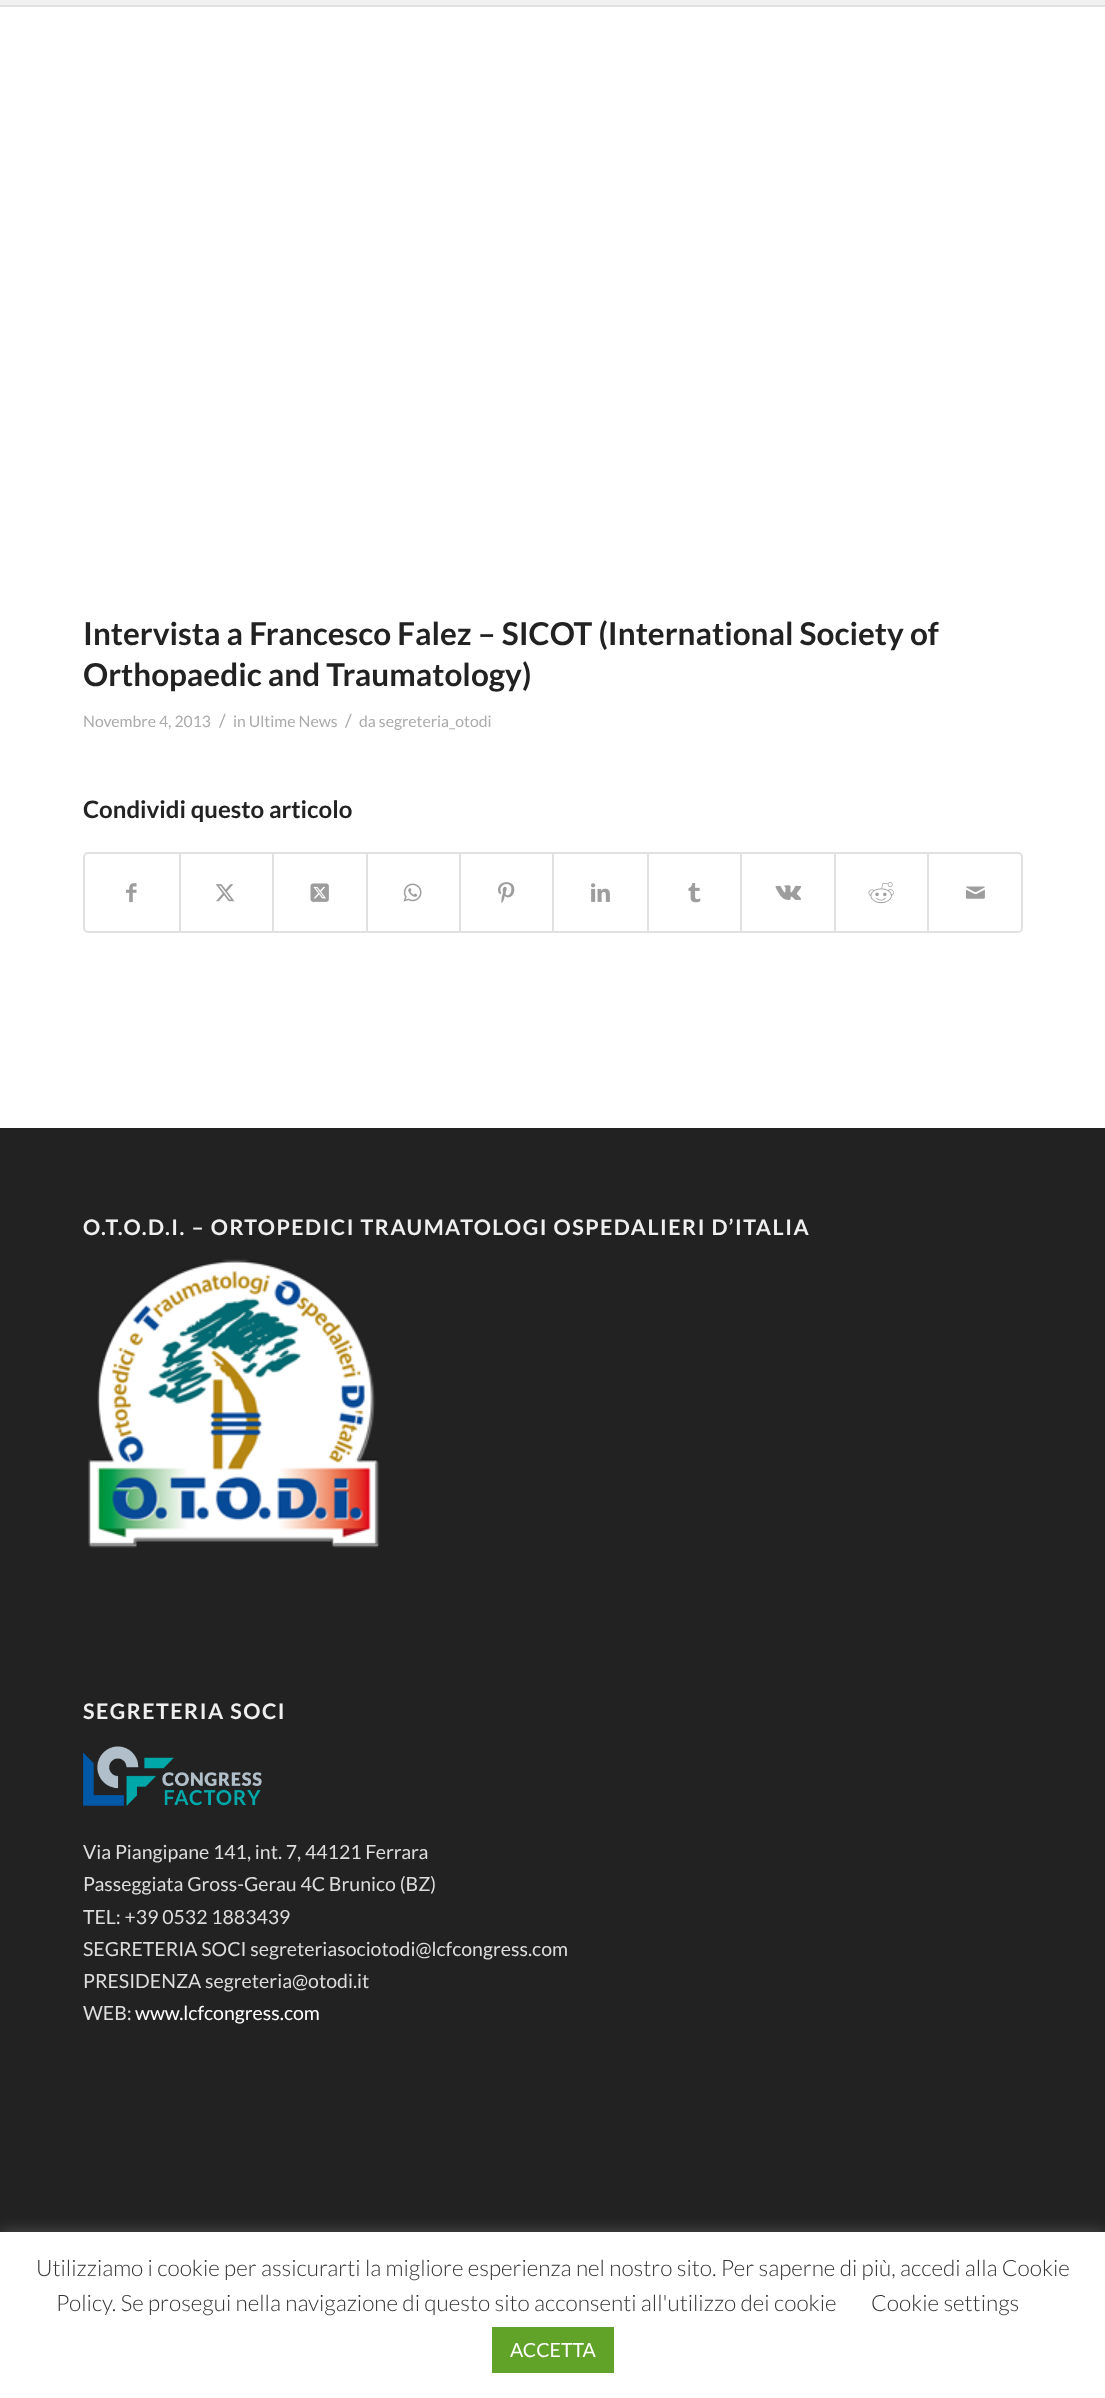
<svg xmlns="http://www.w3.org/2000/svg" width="1105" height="2398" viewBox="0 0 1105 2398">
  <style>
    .t1 { font: bold 31.5px Lato; fill: #222; }
    .t2 { font: 15.75px Lato; fill: #ababab; }
    .t3 { font: 18px Lato; fill: #ababab; }
    .t4 { font: bold 24px Lato; fill: #222; }
    .t5 { font: bold 21.45px Lato; letter-spacing: 1.5px; fill: #efefef; }
    .t6 { font: 19.5px Lato; fill: #ddd; }
    .t7 { font: 19.5px Lato; fill: #fff; }
    .t8 { font: 300 22.5px Lato; fill: #333; }
  </style>
  <rect width="100%" height="100%" fill="#fff"/>
  <rect x="0" y="0" width="1105" height="5" fill="#f1f1f1"/>
  <rect x="0" y="5" width="1105" height="2" fill="#e1e1e1"/>
  <text x="83" y="645" class="t1">Intervista a Francesco Falez – SICOT (International Society of</text>
  <text x="83" y="686" class="t1">Orthopaedic and Traumatology)</text>
  <text x="83" y="727" class="t2">Novembre 4, 2013</text>
  <text x="219" y="727" class="t3">/</text>
  <text x="233" y="727" class="t2">in Ultime News</text>
  <text x="345" y="727" class="t3">/</text>
  <text x="359" y="727" class="t2">da segreteria_otodi</text>
  <text x="83" y="818" class="t4">Condividi questo articolo</text>
  <rect x="84" y="853" width="938" height="79" rx="4" fill="none" stroke="#e1e1e1" stroke-width="2"/>
  <image x="126" y="883" width="11" height="20" href="images/1.png"/>
  <rect x="179" y="854" width="2" height="78" fill="#e1e1e1"/>
  <image x="215" y="884" width="20" height="18" href="images/2.png"/>
  <rect x="272" y="854" width="2" height="78" fill="#e1e1e1"/>
  <image x="310" y="883" width="19" height="19" href="images/3.png"/>
  <rect x="366" y="854" width="2" height="78" fill="#e1e1e1"/>
  <image x="403" y="883" width="19" height="19" href="images/4.png"/>
  <rect x="459" y="854" width="2" height="78" fill="#e1e1e1"/>
  <image x="498" y="882" width="17" height="21" href="images/5.png"/>
  <rect x="552" y="854" width="2" height="78" fill="#e1e1e1"/>
  <image x="591" y="883" width="19" height="19" href="images/6.png"/>
  <rect x="647" y="854" width="2" height="78" fill="#e1e1e1"/>
  <image x="688" y="883" width="13" height="20" href="images/7.png"/>
  <rect x="740" y="854" width="2" height="78" fill="#e1e1e1"/>
  <image x="775" y="885" width="27" height="15" href="images/8.png"/>
  <rect x="834" y="854" width="2" height="78" fill="#e1e1e1"/>
  <image x="868" y="882" width="26" height="22" href="images/9.png"/>
  <rect x="927" y="854" width="2" height="78" fill="#e1e1e1"/>
  <image x="966" y="886" width="19" height="13" href="images/10.png"/>
  <rect x="0" y="1128" width="1105" height="1104" fill="#222"/>
  <text x="83" y="1235" class="t5">O.T.O.D.I. – ORTOPEDICI TRAUMATOLOGI OSPEDALIERI D’ITALIA</text>
  <image x="88" y="1259" width="292" height="289" href="images/11.png"/>
  <text x="83" y="1719" class="t5">SEGRETERIA SOCI</text>
  <image x="83" y="1746" width="179" height="60" href="images/12.png"/>
  <text x="83" y="1859" class="t6">Via Piangipane 141, int. 7, 44121 Ferrara</text>
  <text x="83" y="1891" class="t6">Passeggiata Gross-Gerau 4C Brunico (BZ)</text>
  <text x="83" y="1924" class="t6">TEL: +39 0532 1883439</text>
  <text x="83" y="1956" class="t6">SEGRETERIA SOCI segreteriasociotodi@lcfcongress.com</text>
  <text x="83" y="1988" class="t6">PRESIDENZA segreteria@otodi.it</text>
  <text x="83" y="2020" class="t6">WEB:</text>
  <text x="135" y="2020" class="t7">www.lcfcongress.com</text>
  <rect x="0" y="2231" width="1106" height="166" fill="#acabab4d" filter="blur(7.5px)"/>
  <rect x="0" y="2232" width="1105" height="166" fill="#fff"/>
  <text x="36" y="2276" class="t8">Utilizziamo i cookie per assicurarti la migliore esperienza nel nostro sito. Per saperne di più, accedi alla Cookie</text>
  <text x="56" y="2311" class="t8">Policy. Se prosegui nella navigazione di questo sito acconsenti all'utilizzo dei cookie</text>
  <text x="871" y="2311" class="t8">Cookie settings</text>
  <rect x="492" y="2327" width="122" height="46" fill="#61a229"/>
  <text x="510" y="2357" class="t7">ACCETTA</text>
</svg>
